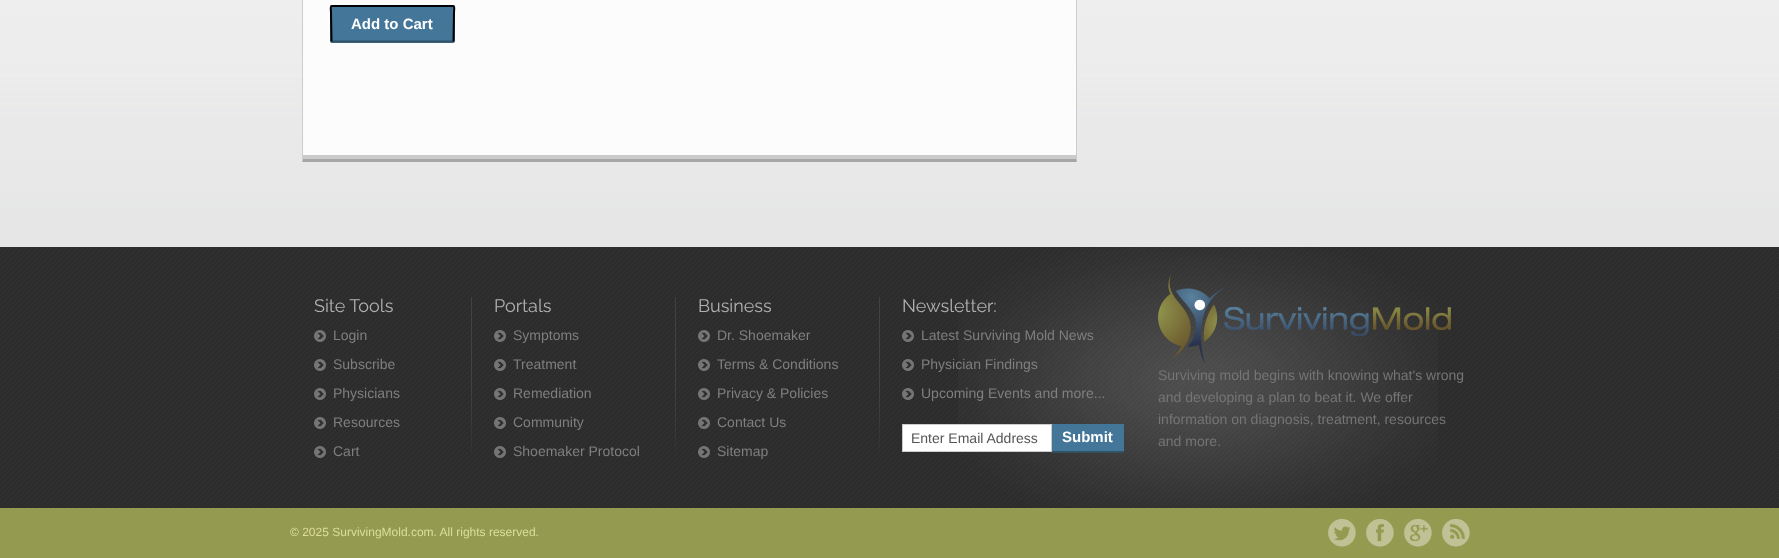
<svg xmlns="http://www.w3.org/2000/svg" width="1779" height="558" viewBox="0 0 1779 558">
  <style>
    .t1 { font: bold 15px Liberation Sans; fill: #fff; }
    .t2 { font: 18px Raleway; fill: #b1b1b1; }
    .t3 { font: 14px Liberation Sans; fill: #7f7f7f; }
    .t4 { font: 14px Liberation Sans; fill: #555; }
    .t5 { font: 14px Liberation Sans; fill: #757575; }
    .t6 { font: 12px Liberation Sans; fill: #dadf9c; }
  </style>
  <defs>
    <clipPath id="clip1"><rect x="290" y="524" width="1028" height="16"/></clipPath>
  </defs>
  <rect width="100%" height="100%" fill="#949a50"/>
  <image x="0" y="0" width="1779" height="247" href="images/1.png"/>
  <rect x="303" y="0" width="773" height="155" fill="#fcfcfc"/>
  <path d="M1077-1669V162L1076 159V-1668Z" fill="#ccc"/>
  <path d="M1077 162H302L303 159H1076Z" fill="#a6a6a6"/>
  <path d="M302 162V-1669L303-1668V159Z" fill="#ccc"/>
  <rect x="303" y="155" width="773" height="4" fill="#cbcbcb"/>
  <rect x="330" y="5" width="125" height="38" rx="2" fill="#437699"/>
  <path d="M453.5 41.5H331.5" fill="none" stroke="#335165" stroke-width="2"/>
  <path d="M331.5 41.5L331 12.5C331 10.5 330 6 332 6H453C455 6 454 10.5 454 12.5L453.5 41.5" fill="none" stroke="#000" stroke-width="2"/>
  <text x="351" y="29" class="t1">Add to Cart</text>
  <image x="0" y="247" width="1779" height="261" href="images/2.png"/>
  <image x="958" y="247" width="480" height="261" href="images/3.png"/>
  <text x="314" y="312" class="t2">Site Tools</text>
  <image x="314" y="330" width="12" height="12" href="images/4.png"/>
  <text x="333" y="340" class="t3">Login</text>
  <image x="314" y="359" width="12" height="12" href="images/5.png"/>
  <text x="333" y="369" class="t3">Subscribe</text>
  <image x="314" y="388" width="12" height="12" href="images/6.png"/>
  <text x="333" y="398" class="t3">Physicians</text>
  <image x="314" y="417" width="12" height="12" href="images/7.png"/>
  <text x="333" y="427" class="t3">Resources</text>
  <image x="314" y="446" width="12" height="12" href="images/8.png"/>
  <text x="333" y="456" class="t3">Cart</text>
  <image x="471" y="297" width="1" height="156" href="images/9.png"/>
  <text x="494" y="312" class="t2">Portals</text>
  <image x="494" y="330" width="12" height="12" href="images/4.png"/>
  <text x="513" y="340" class="t3">Symptoms</text>
  <image x="494" y="359" width="12" height="12" href="images/5.png"/>
  <text x="513" y="369" class="t3">Treatment</text>
  <image x="494" y="388" width="12" height="12" href="images/6.png"/>
  <text x="513" y="398" class="t3">Remediation</text>
  <image x="494" y="417" width="12" height="12" href="images/7.png"/>
  <text x="513" y="427" class="t3">Community</text>
  <image x="494" y="446" width="12" height="12" href="images/8.png"/>
  <text x="513" y="456" class="t3">Shoemaker Protocol</text>
  <image x="675" y="297" width="1" height="156" href="images/10.png"/>
  <text x="698" y="312" class="t2">Business</text>
  <image x="698" y="330" width="12" height="12" href="images/5.png"/>
  <text x="717" y="340" class="t3">Dr. Shoemaker</text>
  <image x="698" y="359" width="12" height="12" href="images/6.png"/>
  <text x="717" y="369" class="t3">Terms &amp; Conditions</text>
  <image x="698" y="388" width="12" height="12" href="images/7.png"/>
  <text x="717" y="398" class="t3">Privacy &amp; Policies</text>
  <image x="698" y="417" width="12" height="12" href="images/8.png"/>
  <text x="717" y="427" class="t3">Contact Us</text>
  <image x="698" y="446" width="12" height="12" href="images/4.png"/>
  <text x="717" y="456" class="t3">Sitemap</text>
  <image x="879" y="297" width="1" height="156" href="images/11.png"/>
  <text x="902" y="312" class="t2">Newsletter:</text>
  <image x="902" y="330" width="12" height="12" href="images/6.png"/>
  <text x="921" y="340" class="t3">Latest Surviving Mold News</text>
  <image x="902" y="359" width="12" height="12" href="images/7.png"/>
  <text x="921" y="369" class="t3">Physician Findings</text>
  <image x="902" y="388" width="12" height="12" href="images/8.png"/>
  <text x="921" y="398" class="t3">Upcoming Events and more...</text>
  <rect x="902.5" y="424.5" width="149" height="27" fill="#fff" stroke="#ccc"/>
  <text x="911" y="443" class="t4">Enter Email Address</text>
  <rect x="1052" y="424" width="72" height="27" fill="#437699"/>
  <rect x="1052" y="451" width="72" height="2" fill="#335165"/>
  <text x="1062" y="442" class="t1">Submit</text>
  <image x="1158" y="275" width="293" height="88" href="images/12.png"/>
  <text x="1158" y="380" class="t5">Surviving mold begins with knowing what's wrong</text>
  <text x="1158" y="402" class="t5">and developing a plan to beat it. We offer</text>
  <text x="1158" y="424" class="t5">information on diagnosis, treatment, resources</text>
  <text x="1158" y="446" class="t5">and more.</text>
  <g clip-path="url(#clip1)">
    <text x="290" y="536" class="t6">© 2025 SurvivingMold.com. All rights reserved.</text>
  </g>
  <image x="1328" y="519" width="28" height="28" href="images/13.png"/>
  <image x="1366" y="519" width="28" height="28" href="images/14.png"/>
  <image x="1404" y="519" width="28" height="28" href="images/15.png"/>
  <image x="1442" y="519" width="28" height="28" href="images/16.png"/>
</svg>
